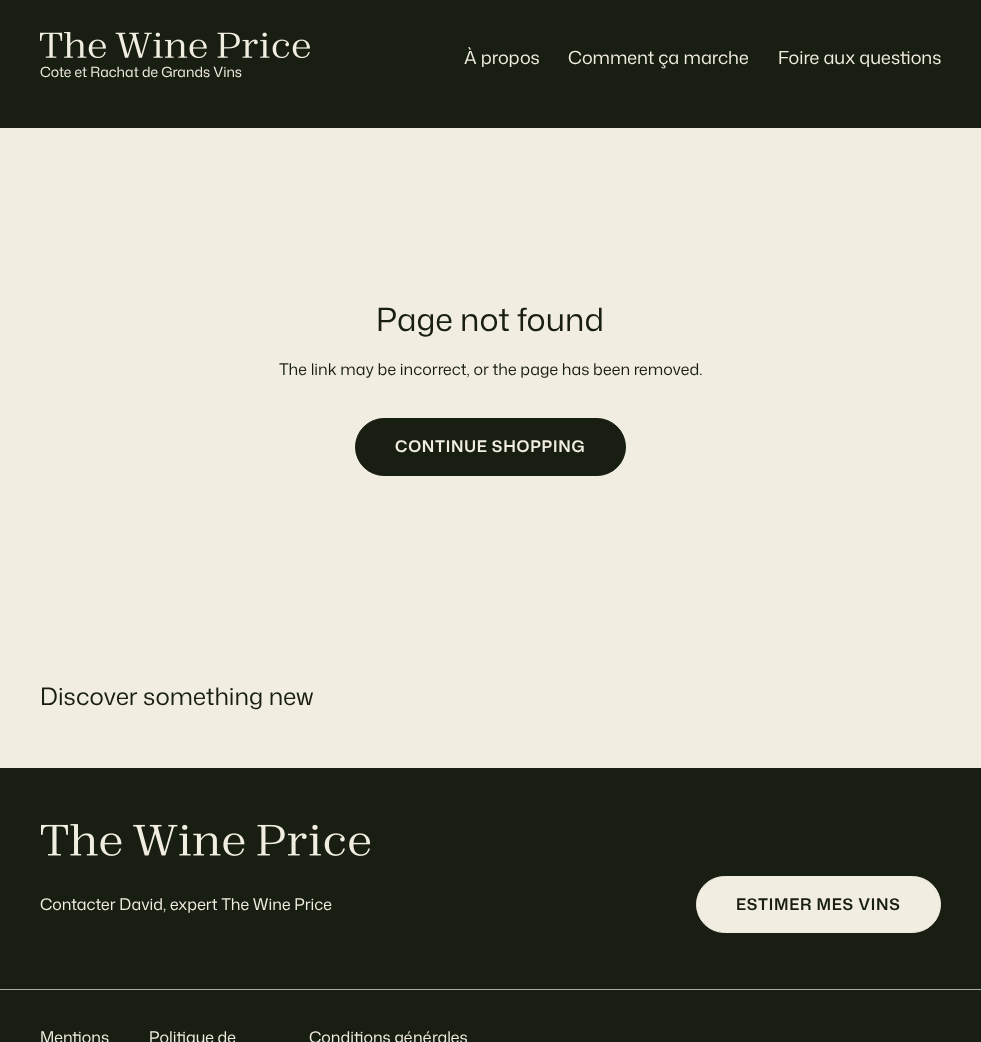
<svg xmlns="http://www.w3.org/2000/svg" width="981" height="1042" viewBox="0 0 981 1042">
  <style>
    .t1 { font: 18px Mona Sans; fill: #f1eee1; }
    .t2 { font: 14px Mona Sans; fill: #f1eee1; }
    .t3 { font: 32px Mona Sans; fill: #191e13; }
    .t4 { font: 16px Mona Sans; fill: #191e13; }
    .t5 { font: 600 16px Mona Sans; letter-spacing: 0.75px; fill: #f1eee1; }
    .t6 { font: 24px Mona Sans; fill: #191e13; }
    .t7 { font: 16px Mona Sans; fill: #f1eee1; }
    .t8 { font: 600 16px Mona Sans; letter-spacing: 0.75px; fill: #191e13; }
  </style>
  <rect width="100%" height="100%" fill="#f1eee1"/>
  <rect x="0" y="0" width="981" height="128" fill="#191e13"/>
  <text x="464" y="64" class="t1">À propos</text>
  <text x="568" y="64" class="t1">Comment ça marche</text>
  <text x="778" y="64" class="t1">Foire aux questions</text>
  <image x="40" y="32" width="270" height="26" href="images/1.png"/>
  <text x="40" y="77" class="t2">Cote et Rachat de Grands Vins</text>
  <text x="376" y="331" class="t3">Page not found</text>
  <text x="279" y="375" class="t4">The link may be incorrect, or the page has been removed.</text>
  <rect x="355.5" y="418.5" width="270" height="57" rx="28.5" fill="#191e13" stroke="#191e13"/>
  <text x="395" y="452" class="t5">CONTINUE SHOPPING</text>
  <text x="40" y="705" class="t6">Discover something new</text>
  <rect x="0" y="768" width="981" height="221" fill="#191e13"/>
  <image x="41" y="824" width="329" height="32" href="images/2.png"/>
  <text x="40" y="910" class="t7">Contacter David, expert The Wine Price</text>
  <rect x="696.5" y="876.5" width="244" height="56" rx="28" fill="#f1eee1" stroke="#f1eee1"/>
  <text x="736" y="910" class="t8">ESTIMER MES VINS</text>
  <rect x="0" y="989" width="981" height="1" fill="#a9a99f"/>
  <rect x="0" y="990" width="981" height="52" fill="#191e13"/>
  <text x="40" y="1043" class="t7">Mentions</text>
  <text x="149" y="1043" class="t7">Politique de</text>
  <text x="309" y="1043" class="t7">Conditions générales</text>
</svg>
